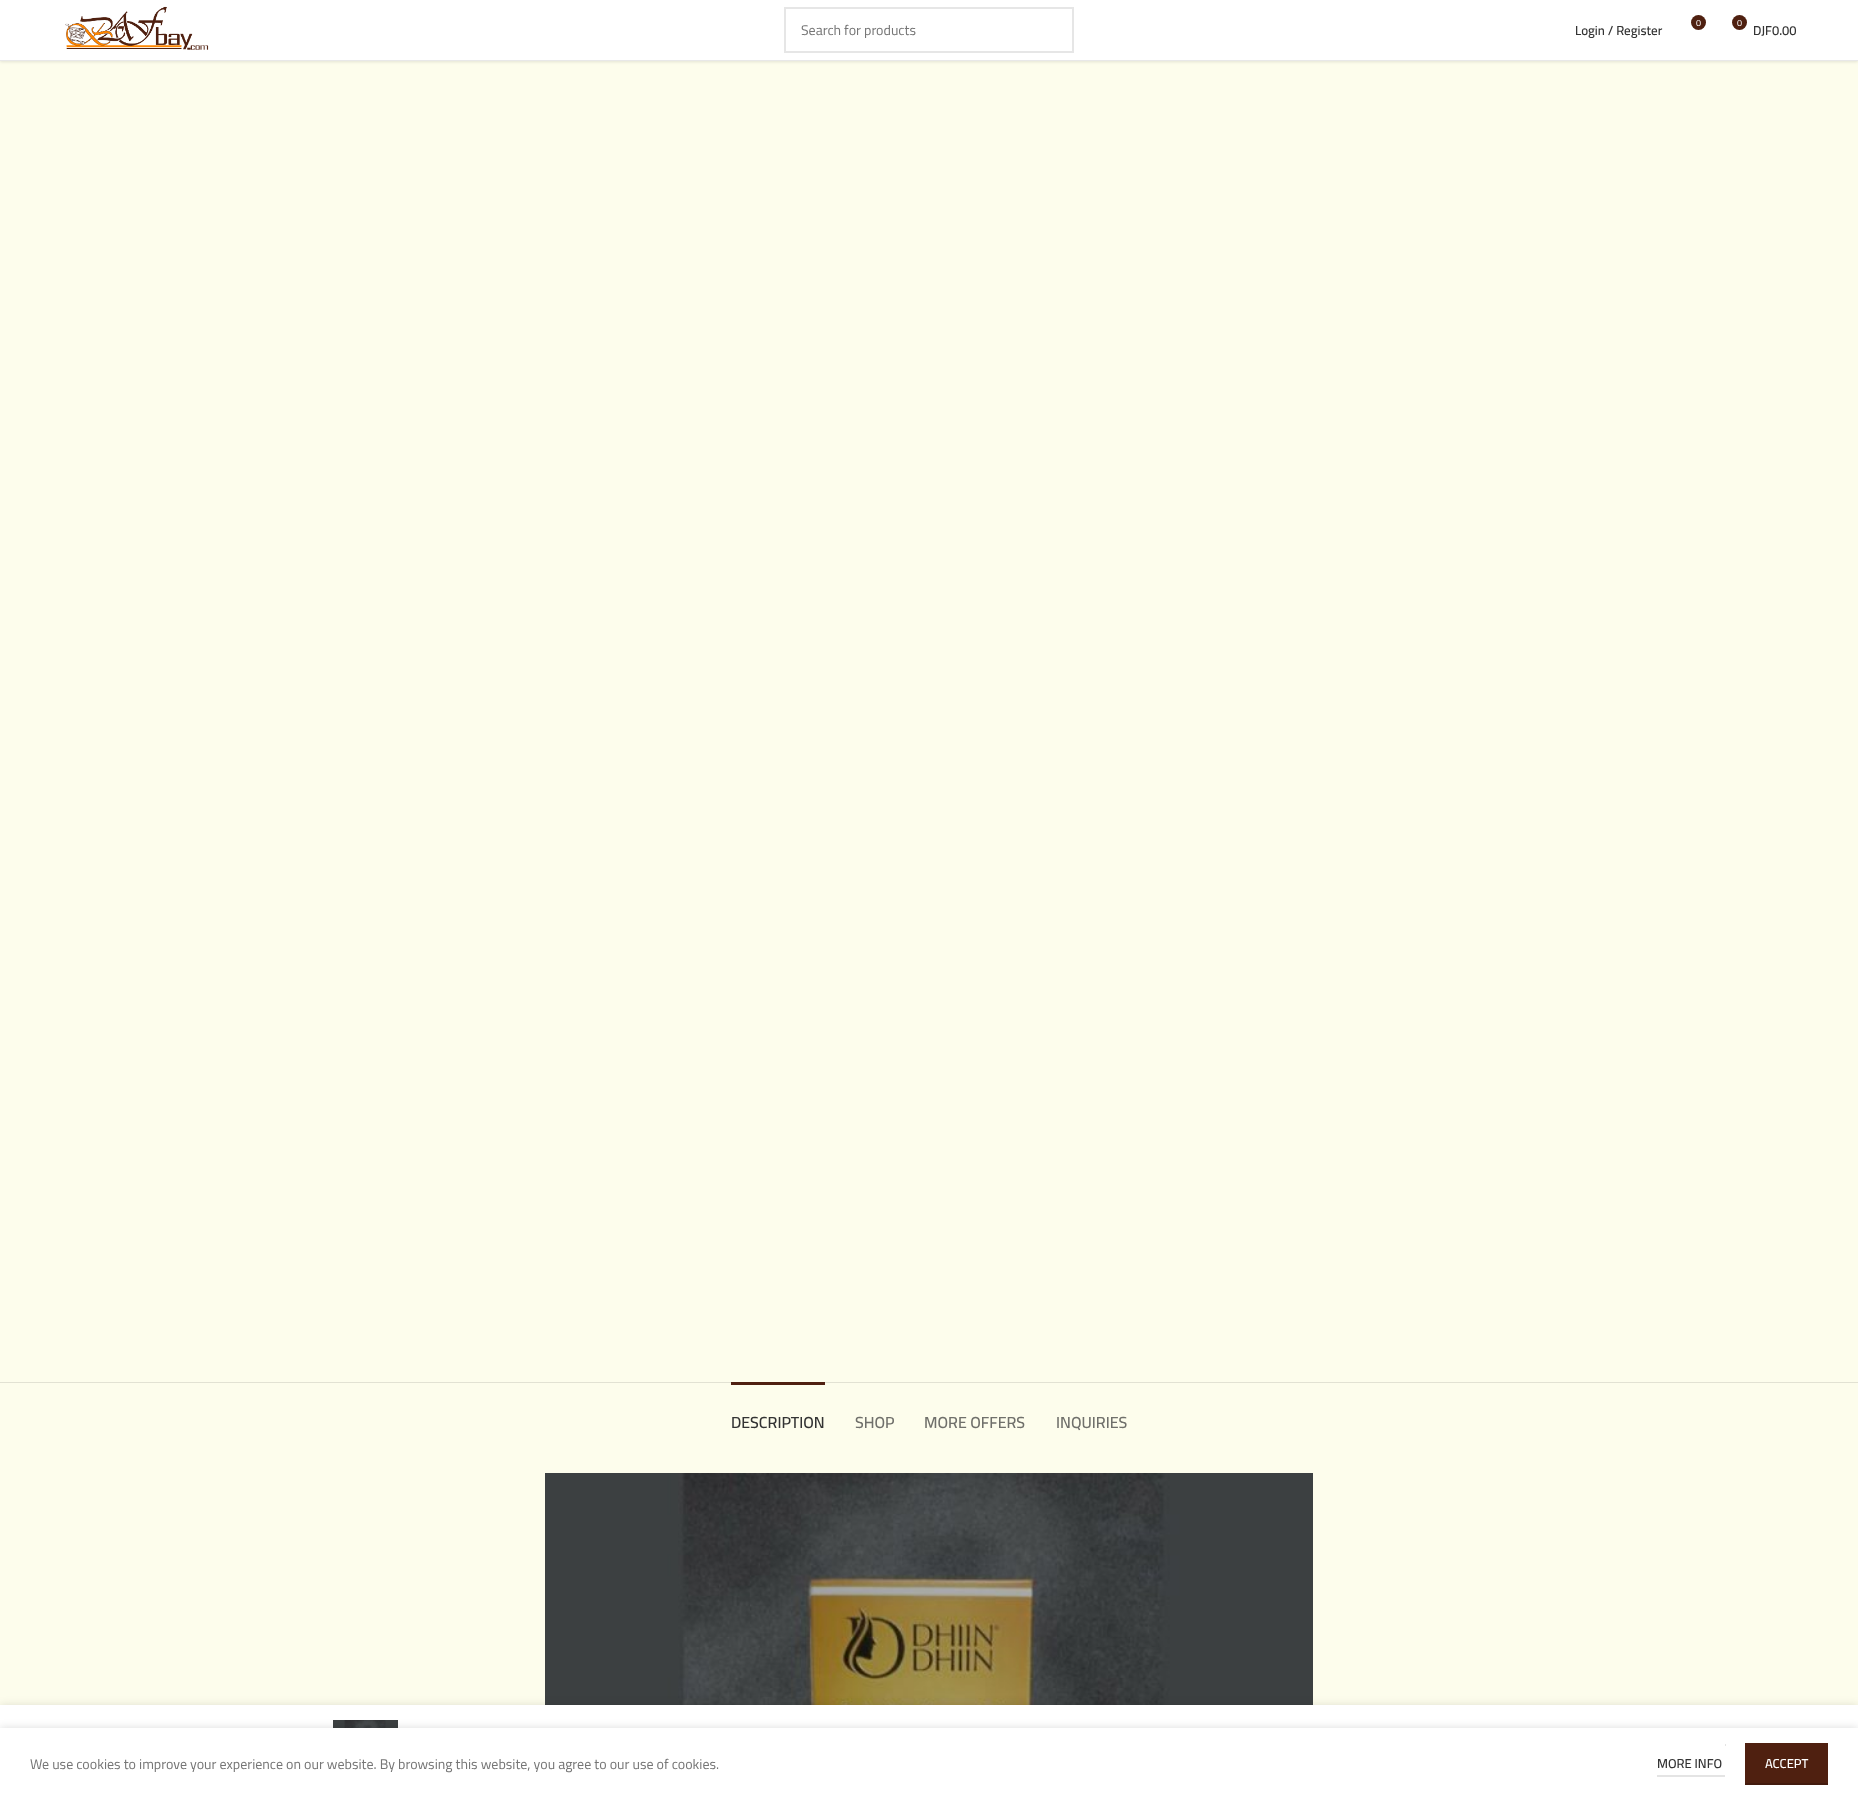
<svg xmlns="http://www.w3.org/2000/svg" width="1858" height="1800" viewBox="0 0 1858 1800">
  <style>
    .t1 { font: 14px Cairo; fill: #767676; }
    .t2 { font: 600 13px Cairo; fill: #333; }
    .t3 { font: 9px Cairo; fill: #fff; }
    .t4 { font: 600 16px Cairo; fill: #333; }
    .t5 { font: 600 16px Cairo; fill: #70706b; }
    .t6 { font: 600 13px Cairo; fill: #fff; }
  </style>
  <rect width="100%" height="100%" fill="#fdfdec"/>
  <rect x="0" y="1" width="1858" height="61" fill="#0000001a" filter="blur(1.5px)"/>
  <rect x="0" y="0" width="1858" height="60" fill="#fff"/>
  <rect x="0" y="60" width="1858" height="1" fill="#e8e8e8"/>
  <image x="65" y="6" width="144" height="44" href="images/1.png"/>
  <rect x="785" y="8" width="288" height="44" fill="none" stroke="#e6e6e6" stroke-width="2"/>
  <text x="801" y="35" class="t1">Search for products</text>
  <text x="1575" y="35" class="t2">Login / Register</text>
  <circle cx="1698.5" cy="22.5" r="7.5" fill="#4f2010"/>
  <text x="1696" y="26" class="t3">0</text>
  <circle cx="1739.5" cy="22.5" r="7.5" fill="#4f2010"/>
  <text x="1737" y="26" class="t3">0</text>
  <text x="1753" y="35" class="t2">DJF0.00</text>
  <rect x="0" y="1382" width="1858" height="1" fill="#e2e2d3"/>
  <rect x="731" y="1382" width="94" height="3" fill="#4f2010"/>
  <text x="731" y="1428" class="t4">DESCRIPTION</text>
  <text x="855" y="1428" class="t5">SHOP</text>
  <text x="924" y="1428" class="t5">MORE OFFERS</text>
  <text x="1056" y="1428" class="t5">INQUIRIES</text>
  <image x="545" y="1473" width="768" height="232" href="images/2.png"/>
  <rect x="0" y="1705" width="1858" height="95" fill="#0000001f" filter="blur(4.5px)"/>
  <rect x="0" y="1705" width="1858" height="23" fill="#fff"/>
  <image x="333" y="1720" width="65" height="8" href="images/3.png"/>
  <rect x="0" y="1728" width="1858" height="72" fill="#00000024" filter="blur(4.5px)"/>
  <rect x="0" y="1728" width="1858" height="72" fill="#fff"/>
  <text x="30" y="1769" class="t1">We use cookies to improve your experience on our website. By browsing this website, you agree to our use of cookies.</text>
  <text x="1657" y="1768" class="t2">MORE INFO</text>
  <rect x="1657" y="1775" width="68" height="2" fill="#e4e4e4"/>
  <rect x="1725" y="1744" width="1" height="2" fill="#e4e4e4"/>
  <rect x="1745" y="1743" width="83" height="40" fill="#4f2010"/>
  <rect x="1745" y="1783" width="83" height="2" fill="#431b0e"/>
  <text x="1765" y="1768" class="t6">ACCEPT</text>
</svg>
